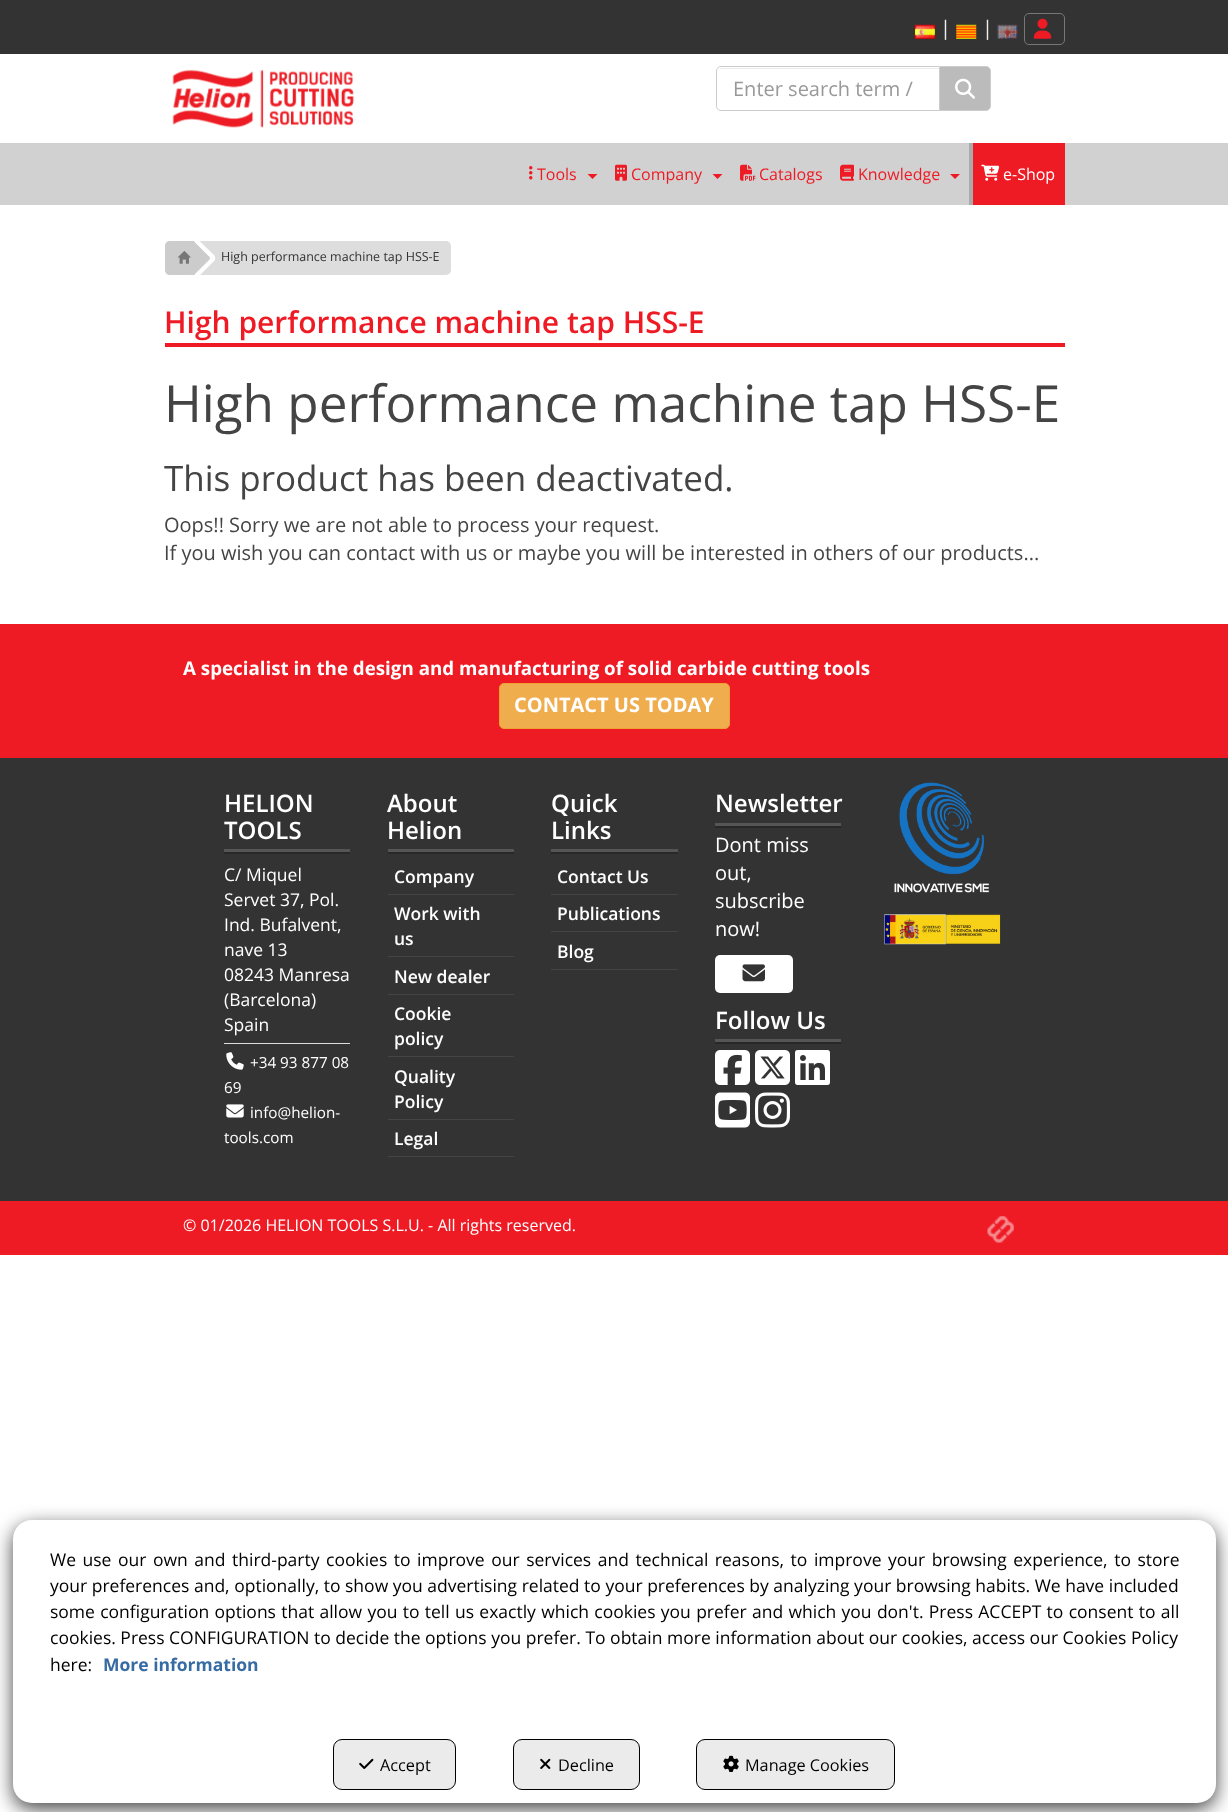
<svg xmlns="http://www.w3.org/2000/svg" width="1228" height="1812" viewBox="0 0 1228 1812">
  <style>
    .t1 { font: 20px Open Sans; fill: #eee; }
    .t2 { font: 20px Open Sans; fill: #999; }
    .t3 { font: 16px Open Sans; fill: #ee1b25; }
    .t4 { font: 16px Open Sans; fill: #fff; }
    .t5 { font: 12.5px Open Sans; fill: #333; }
    .t6 { font: 600 30px Open Sans; fill: #ee1b25; }
    .t7 { font: 51.25px Open Sans; fill: #444; }
    .t8 { font: 35px Open Sans; fill: #444; }
    .t9 { font: 20px Open Sans; fill: #444; }
    .t10 { font: bold 18.75px Open Sans; fill: #fff; }
    .t11 { font: bold 20px Open Sans; fill: #fff; }
    .t12 { font: 600 24px Open Sans; fill: #fff; }
    .t13 { font: 17.5px Open Sans; fill: #fff; }
    .t14 { font: 15.25px Open Sans; fill: #fff; }
    .t15 { font: 600 17.5px Open Sans; fill: #fff; }
    .t16 { font: 20px Open Sans; fill: #fff; }
    .t17 { font: 17.5px Open Sans; fill: #000; }
    .t18 { font: bold 17.5px Open Sans; fill: #376ba3; }
    .t19 { font: 16.25px Open Sans; fill: #000; }
  </style>
  <rect width="100%" height="100%" fill="#fff"/>
  <rect x="0" y="0" width="1228" height="54" fill="#333"/>
  <image x="915" y="24" width="20" height="15" href="images/1.png"/>
  <text x="940" y="35" class="t1">|</text>
  <image x="956" y="24" width="21" height="15" href="images/2.png"/>
  <text x="982" y="35" class="t1">|</text>
  <image x="997" y="24" width="21" height="15" href="images/3.png"/>
  <rect x="1024.5" y="13.5" width="40" height="31" rx="4.5" fill="none" stroke="#777"/>
  <image x="1033" y="18" width="19" height="21" href="images/4.png"/>
  <image x="172" y="69" width="182" height="59" href="images/5.png"/>
  <path d="M939.5 66.5H986C988.5 66.5 990.5 68.5 990.5 71V106C990.5 108.5 988.5 110.5 986 110.5H939.5Z" fill="#bbb" stroke="#ccc"/>
  <path d="M721 66H940V111H721C718 111 716 109 716 106V71C716 68 718 66 721 66Z" fill="#fff"/>
  <path d="M721 69H939V68H722C721 68 719 69 719 70Z" fill="#ececec"/>
  <path d="M721 66.5H939.5V110.5H721C718.5 110.5 716.5 108.5 716.5 106V71C716.5 68.5 718.5 66.5 721 66.5Z" fill="none" stroke="#ccc"/>
  <text x="733" y="96" class="t2">Enter search term /</text>
  <image x="955" y="78" width="20" height="21" href="images/6.png"/>
  <rect x="0" y="143" width="1228" height="62" fill="#d1d1d1"/>
  <image x="529" y="166" width="4" height="14" href="images/7.png"/>
  <text x="537" y="180" class="t3">Tools</text>
  <path d="M587.5 174H597.5L592.5 179Z" fill="#ee1b25"/>
  <image x="615" y="164" width="12" height="17" href="images/8.png"/>
  <text x="631" y="180" class="t3">Company</text>
  <path d="M712.5 174H722.5L717.5 179Z" fill="#ee1b25"/>
  <image x="740" y="164" width="16" height="17" href="images/9.png"/>
  <text x="759" y="180" class="t3">Catalogs</text>
  <image x="840" y="164" width="14" height="17" href="images/10.png"/>
  <text x="858" y="180" class="t3">Knowledge</text>
  <path d="M950 174H960L955 179Z" fill="#ee1b25"/>
  <rect x="973" y="143" width="92" height="62" fill="#ee1b25"/>
  <rect x="969" y="143" width="4" height="62" fill="#aaa"/>
  <image x="981" y="164" width="19" height="17" href="images/11.png"/>
  <text x="1003" y="180" class="t4">e-Shop</text>
  <path d="M170 241H196V275H170C167 275 165 273 165 270V246C165 243 167 241 170 241Z" fill="#ccc"/>
  <rect x="196" y="241" width="255" height="34" rx="5" fill="#ddd"/>
  <path d="M195.5 275H200L214.5 260.5C215.5 259.5 215.5 257 214.5 255.5L199.5 241H195.5L194.5 242L209.5 257C210 257.5 210 258.5 209.5 259.5L194.5 274Z" fill="#fff"/>
  <path d="M194 275H199L213 260.5C214.5 259.5 214.5 257 213 255.5L198.5 241H194V241.5L209.5 257C210 257.5 210 258.5 209.5 259.5Z" fill="#fff"/>
  <path d="M194 241.5L209.5 257C210 257.5 210 258.5 209.5 259.5L194 275C184.5 265.5 184.5 250.5 194 241.5Z" fill="#ccc"/>
  <image x="177" y="251" width="14" height="13" href="images/12.png"/>
  <text x="221" y="261" class="t5">High performance machine tap HSS-E</text>
  <rect x="165" y="343" width="900" height="4" fill="#ee1b25"/>
  <text x="164" y="333" class="t6">High performance machine tap HSS-E</text>
  <text x="164" y="422" class="t7">High performance machine tap HSS-E</text>
  <text x="164" y="491" class="t8">This product has been deactivated.</text>
  <text x="164" y="532" class="t9">Oops!! Sorry we are not able to process your request.</text>
  <text x="164" y="560" class="t9">If you wish you can contact with us or maybe you will be interested in others of our products...</text>
  <rect x="0" y="758" width="1228" height="443" fill="#333"/>
  <rect x="0" y="624" width="1228" height="134" fill="#ee1b25"/>
  <text x="183" y="675" class="t10">A specialist in the design and manufacturing of solid carbide cutting tools</text>
  <rect x="499.5" y="683.5" width="230" height="45" rx="4.5" fill="#f0ad4e" stroke="#eea236"/>
  <text x="514" y="712" class="t11">CONTACT US TODAY</text>
  <rect x="224" y="852" width="126" height="2" fill="#282828"/>
  <rect x="224" y="849" width="126" height="3" fill="#555"/>
  <text x="224" y="812" class="t12">HELION</text>
  <text x="224" y="839" class="t12">TOOLS</text>
  <rect x="224" y="1043" width="126" height="1" fill="#ddd"/>
  <text x="224" y="881" class="t13">C/ Miquel</text>
  <text x="224" y="906" class="t13">Servet 37, Pol.</text>
  <text x="224" y="931" class="t13">Ind. Bufalvent,</text>
  <text x="224" y="956" class="t13">nave 13</text>
  <text x="224" y="981" class="t13">08243 Manresa</text>
  <text x="224" y="1006" class="t13">(Barcelona)</text>
  <text x="224" y="1031" class="t13">Spain</text>
  <image x="226" y="1052" width="18" height="18" href="images/13.png"/>
  <text x="250" y="1068" class="t14">+34 93 877 08</text>
  <text x="224" y="1093" class="t14">69</text>
  <image x="226" y="1104" width="18" height="14" href="images/14.png"/>
  <text x="250" y="1118" class="t14">info@helion-</text>
  <text x="224" y="1143" class="t14">tools.com</text>
  <path d="M388 851V854H514V793V851Z" fill="#282828"/>
  <rect x="388" y="849" width="126" height="3" fill="#555"/>
  <text x="387" y="812" class="t12">About</text>
  <text x="387" y="839" class="t12">Helion</text>
  <rect x="388" y="894" width="126" height="1" fill="#444"/>
  <text x="394" y="883" class="t15">Company</text>
  <rect x="388" y="956" width="126" height="1" fill="#444"/>
  <text x="394" y="920" class="t15">Work with</text>
  <text x="394" y="945" class="t15">us</text>
  <rect x="388" y="994" width="126" height="1" fill="#444"/>
  <text x="394" y="983" class="t15">New dealer</text>
  <rect x="388" y="1056" width="126" height="1" fill="#444"/>
  <text x="394" y="1020" class="t15">Cookie</text>
  <text x="394" y="1045" class="t15">policy</text>
  <rect x="388" y="1119" width="126" height="1" fill="#444"/>
  <text x="394" y="1083" class="t15">Quality</text>
  <text x="394" y="1108" class="t15">Policy</text>
  <rect x="388" y="1156" width="126" height="1" fill="#444"/>
  <text x="394" y="1145" class="t15">Legal</text>
  <path d="M551 793V854H678V793V851H551Z" fill="#282828"/>
  <rect x="551" y="849" width="127" height="3" fill="#555"/>
  <text x="551" y="812" class="t12">Quick</text>
  <text x="551" y="839" class="t12">Links</text>
  <rect x="551" y="894" width="127" height="1" fill="#444"/>
  <text x="557" y="883" class="t15">Contact Us</text>
  <rect x="551" y="931" width="127" height="1" fill="#444"/>
  <text x="557" y="920" class="t15">Publications</text>
  <rect x="551" y="969" width="127" height="1" fill="#444"/>
  <text x="557" y="958" class="t15">Blog</text>
  <rect x="715" y="826" width="126" height="2" fill="#282828"/>
  <rect x="715" y="823" width="126" height="3" fill="#555"/>
  <text x="715" y="812" class="t12">Newsletter</text>
  <text x="715" y="852" class="t16">Dont miss</text>
  <text x="715" y="880" class="t16">out,</text>
  <text x="715" y="908" class="t16">subscribe</text>
  <text x="715" y="936" class="t16">now!</text>
  <rect x="715" y="955" width="78" height="38" rx="5" fill="#fff"/>
  <image x="742" y="964" width="23" height="18" href="images/15.png"/>
  <rect x="715" y="1042" width="126" height="2" fill="#282828"/>
  <rect x="715" y="1039" width="126" height="3" fill="#555"/>
  <text x="715" y="1029" class="t12">Follow Us</text>
  <image x="715" y="1050" width="35" height="35" href="images/16.png"/>
  <image x="755" y="1050" width="35" height="35" href="images/17.png"/>
  <image x="795" y="1050" width="35" height="35" href="images/18.png"/>
  <image x="715" y="1092" width="35" height="36" href="images/19.png"/>
  <image x="755" y="1092" width="35" height="36" href="images/20.png"/>
  <image x="884" y="782" width="117" height="163" href="images/21.png"/>
  <rect x="0" y="1201" width="1228" height="54" fill="#ee1b25"/>
  <text x="183" y="1231" class="t4">© 01/2026 HELION TOOLS S.L.U. - All rights reserved.</text>
  <image x="987" y="1216" width="27" height="27" href="images/22.png"/>
  <rect x="13" y="1526" width="1203" height="283" rx="19" fill="#454545" filter="blur(9.5px)"/>
  <rect x="13" y="1520" width="1203" height="283" rx="19" fill="#fff"/>
  <text x="50" y="1566" word-spacing="2" class="t17">We use our own and third-party cookies to improve our services and technical reasons, to improve your browsing experience, to store</text>
  <text x="50" y="1592" class="t17">your preferences and, optionally, to show you advertising related to your preferences by analyzing your browsing habits. We have included</text>
  <text x="50" y="1618" word-spacing="0.75" class="t17">some configuration options that allow you to tell us exactly which cookies you prefer and which you don't. Press ACCEPT to consent to all</text>
  <text x="50" y="1644" class="t17">cookies. Press CONFIGURATION to decide the options you prefer. To obtain more information about our cookies, access our Cookies Policy</text>
  <text x="50" y="1671" class="t17">here:</text>
  <text x="103" y="1671" class="t18">More information</text>
  <rect x="333.5" y="1739.5" width="122" height="50" rx="8.5" fill="#ebebeb" stroke="#000"/>
  <image x="359" y="1758" width="15" height="11" href="images/23.png"/>
  <text x="380" y="1771" class="t19">Accept</text>
  <rect x="513.5" y="1739.5" width="126" height="50" rx="8.5" fill="#ebebeb" stroke="#000"/>
  <image x="540" y="1758" width="11" height="11" href="images/24.png"/>
  <text x="558" y="1771" class="t19">Decline</text>
  <rect x="696.5" y="1739.5" width="198" height="50" rx="8.5" fill="#ebebeb" stroke="#000"/>
  <image x="723" y="1755" width="16" height="17" href="images/25.png"/>
  <text x="745" y="1771" class="t19">Manage Cookies</text>
</svg>
